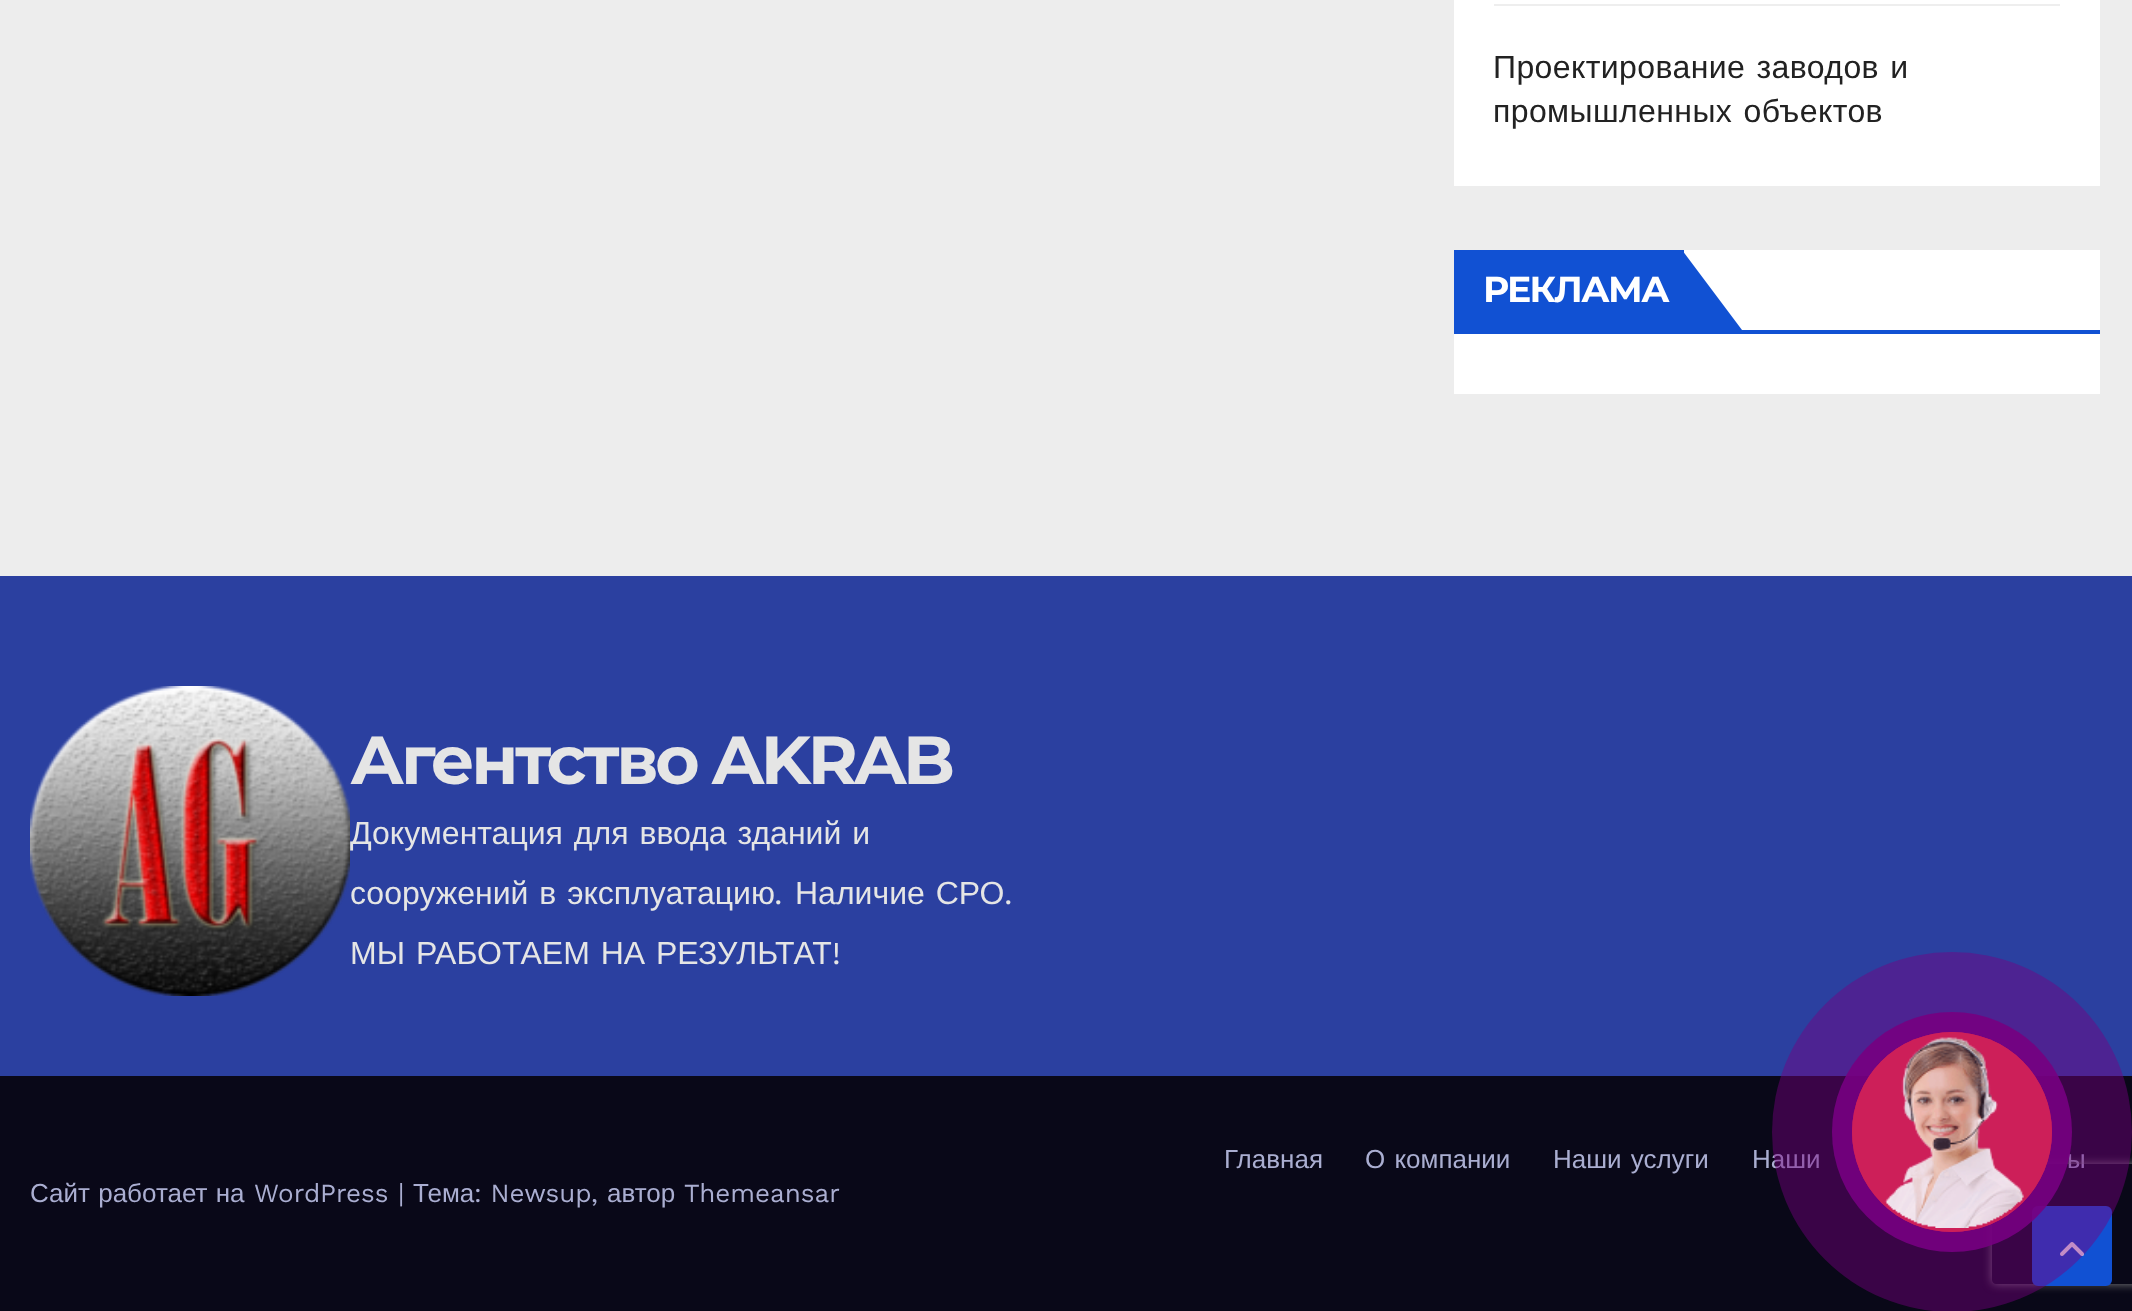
<svg xmlns="http://www.w3.org/2000/svg" width="2132" height="1311" viewBox="0 0 2132 1311">
  <style>
    .t1 { font: 32px Liberation Sans; letter-spacing: 0.4px; fill: #222; }
    .t2 { font: bold 36px Montserrat; letter-spacing: -1.75px; fill: #fff; }
    .t3 { font: bold 68px Montserrat; letter-spacing: -3.4px; fill: #e5e5e5; }
    .t4 { font: 32px Liberation Sans; fill: #e5e5e5; }
    .t5 { font: 32px Work Sans; fill: #e5e5e5; }
    .t6 { font: 26px Liberation Sans; fill: #aaaed1; }
    .t7 { font: 26px Work Sans; fill: #aaaed1; }
  </style>
  <defs>
    <clipPath id="clip1"><path d="M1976 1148H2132V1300H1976ZM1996 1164H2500C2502 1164 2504 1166 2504 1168V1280C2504 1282 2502 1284 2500 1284H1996C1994 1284 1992 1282 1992 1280V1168C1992 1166 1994 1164 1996 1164Z" clip-rule="evenodd"/></clipPath>
  </defs>
  <rect width="100%" height="100%" fill="#ededed"/>
  <rect x="1454" y="0" width="646" height="186" fill="#fff"/>
  <rect x="1494" y="4" width="566" height="2" fill="#eee"/>
  <text x="1493" y="78" word-spacing="2" class="t1">Проектирование заводов и</text>
  <text x="1493" y="122" word-spacing="2" class="t1">промышленных объектов</text>
  <rect x="1454" y="250" width="646" height="144" fill="#fff"/>
  <rect x="1454" y="330" width="646" height="4" fill="#1151d3"/>
  <rect x="1454" y="250" width="230" height="80" fill="#1151d3"/>
  <text x="1483" y="302" class="t2">РЕКЛАМА</text>
  <path d="M1682 330V250L1742 330Z" fill="#1151d3"/>
  <rect x="0" y="576" width="2132" height="500" fill="#2b40a0"/>
  <image x="30" y="686" width="320" height="310" href="images/1.png"/>
  <text x="350" y="784" class="t3">Агентство AKRAB</text>
  <text x="350" y="844" word-spacing="2" class="t4">Документация для ввода зданий и</text>
  <text x="350" y="904" word-spacing="2" class="t4">сооружений в эксплуатацию</text>
  <text x="774" y="904" class="t5">.</text>
  <text x="795" y="904" word-spacing="2" class="t4">Наличие СРО</text>
  <text x="1004" y="904" class="t5">.</text>
  <text x="350" y="964" word-spacing="2" class="t4">МЫ РАБОТАЕМ НА РЕЗУЛЬТАТ</text>
  <text x="832" y="964" class="t5">!</text>
  <rect x="0" y="1076" width="2132" height="235" fill="#090818"/>
  <text x="1224" y="1168" class="t6">Главная</text>
  <text x="1365" y="1168" word-spacing="2" class="t6">О компании</text>
  <text x="1553" y="1168" word-spacing="2" class="t6">Наши услуги</text>
  <text x="1752" y="1168" word-spacing="2" class="t6">Наши</text>
  <text x="2067" y="1168" class="t6">ы</text>
  <text x="30" y="1202" word-spacing="1" class="t6">Сайт работает на</text>
  <text x="254" y="1202" class="t7">WordPress</text>
  <text x="398" y="1202" class="t7">|</text>
  <text x="413" y="1202" class="t6">Тема</text>
  <text x="474" y="1202" class="t7">: Newsup,</text>
  <text x="607" y="1202" class="t6">автор</text>
  <text x="684" y="1202" class="t7">Themeansar</text>
  <g clip-path="url(#clip1)">
    <rect x="1992" y="1164" width="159" height="120" rx="4" fill="#808080" filter="blur(5px)"/>
  </g>
  <rect x="2036" y="1216" width="72" height="72" rx="2" fill="#00000033" filter="blur(1px)"/>
  <rect x="2034" y="1208" width="76" height="76" rx="4" fill="#1151d3" stroke="#1151d3" stroke-width="4"/>
  <image x="2060" y="1242" width="24" height="14" href="images/3.png"/>
  <circle cx="1952" cy="1132" r="180" fill="#77008173"/>
  <circle cx="1952" cy="1132" r="120" fill="#770081e6"/>
  <circle cx="1952" cy="1132" r="100" fill="#ce205ae6"/>
  <image x="1852" y="1032" width="200" height="200" href="images/2.png"/>
</svg>
